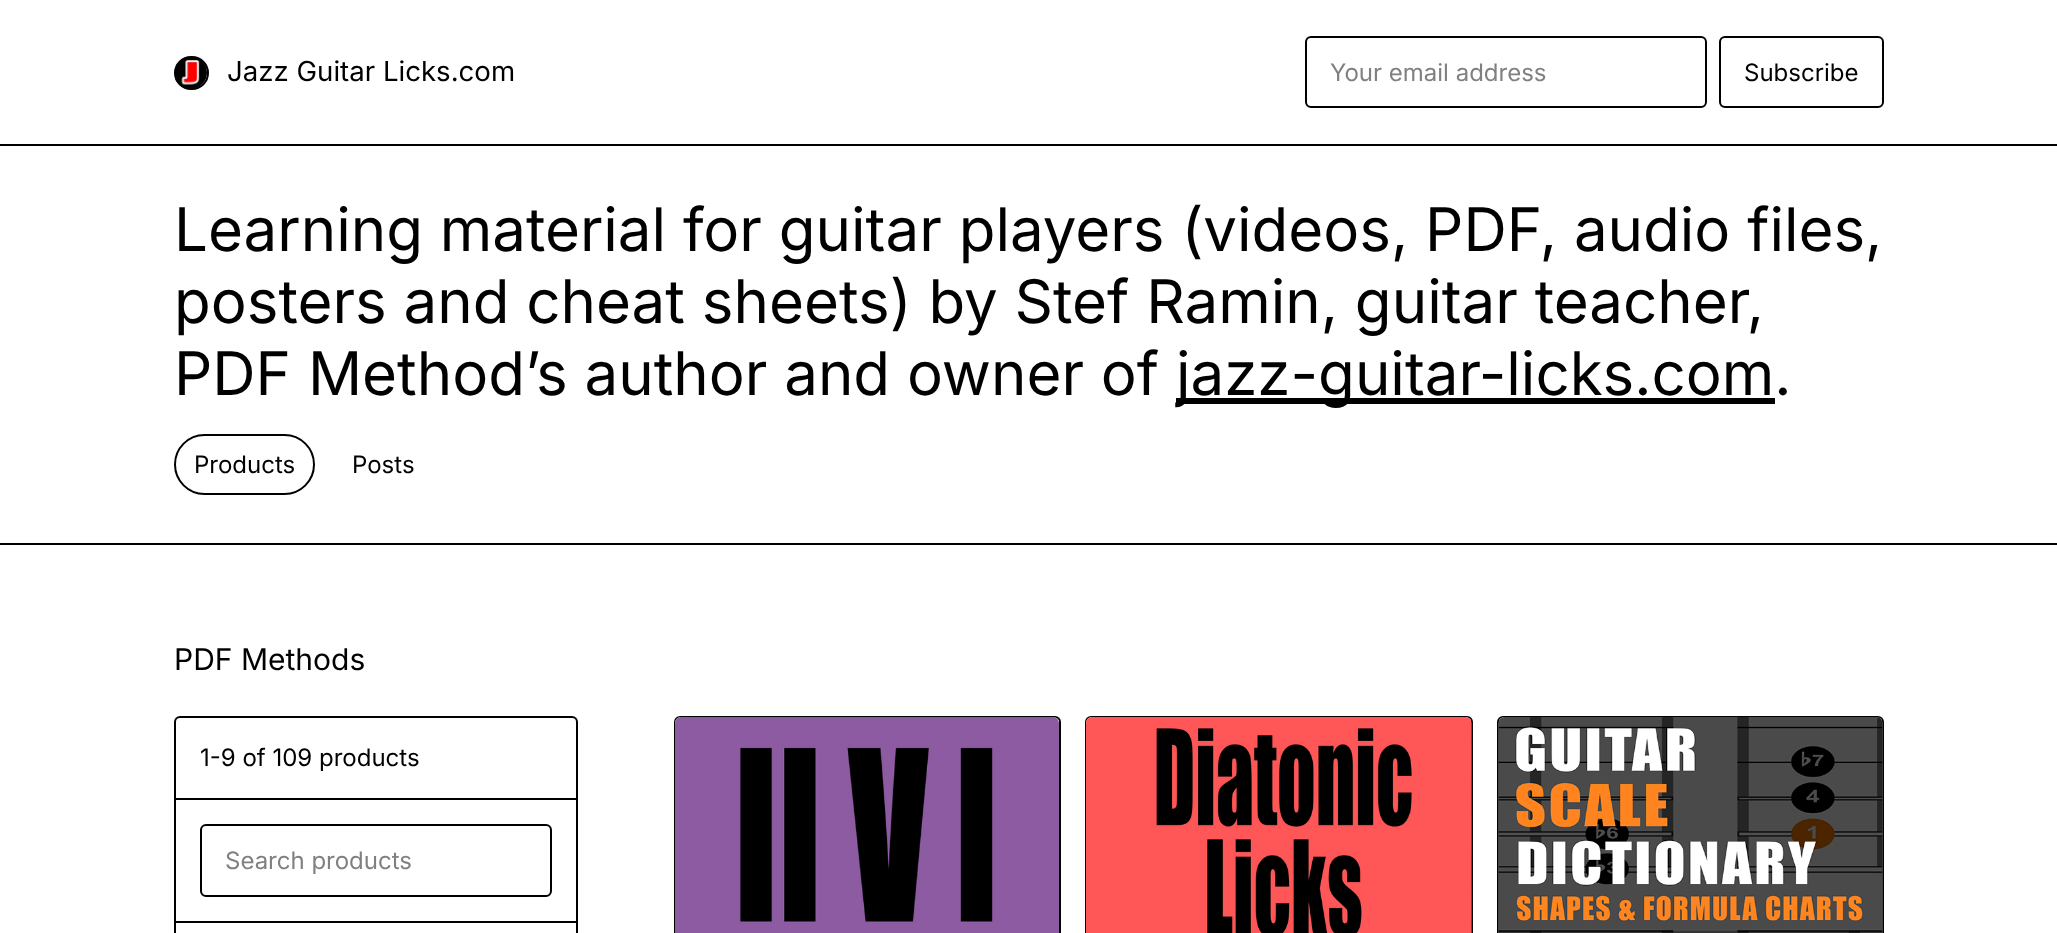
<svg xmlns="http://www.w3.org/2000/svg" width="2057" height="933" viewBox="0 0 2057 933">
  <style>
    .t1 { font: 27.6px Inter; fill: #000; }
    .t2 { font: 24px Inter; fill: #808080; }
    .t3 { font: 24px Inter; fill: #000; }
    .t4 { font: 60px Inter; fill: #000; }
    .t5 { font: 30px Inter; fill: #000; }
  </style>
  <rect width="100%" height="100%" fill="#fff"/>
  <rect x="0" y="144" width="2057" height="2" fill="#000"/>
  <rect x="175" y="57" width="33" height="32" rx="16" fill="none" stroke="#000" stroke-width="2"/>
  <image x="176" y="58" width="31" height="30" href="images/1.png"/>
  <text x="227" y="81" class="t1">Jazz Guitar Licks.com</text>
  <rect x="1306" y="37" width="400" height="70" rx="5" fill="none" stroke="#000" stroke-width="2"/>
  <text x="1330" y="81" class="t2">Your email address</text>
  <rect x="1720" y="37" width="163" height="70" rx="5" fill="none" stroke="#000" stroke-width="2"/>
  <text x="1744" y="81" class="t3">Subscribe</text>
  <rect x="0" y="543" width="2057" height="2" fill="#000"/>
  <text x="174" y="251" class="t4">Learning material for guitar players (videos, PDF, audio files,</text>
  <text x="174" y="323" class="t4">posters and cheat sheets) by Stef Ramin, guitar teacher,</text>
  <text x="174" y="395" class="t4">PDF Method’s author and owner of</text>
  <rect x="1176" y="398" width="599" height="6" fill="#000"/>
  <text x="1176" y="395" class="t4">jazz-guitar-licks.com.</text>
  <rect x="175" y="435" width="139" height="59" rx="29.5" fill="none" stroke="#000" stroke-width="2"/>
  <text x="194" y="473" class="t3">Products</text>
  <text x="352" y="473" class="t3">Posts</text>
  <text x="174" y="670" class="t5">PDF Methods</text>
  <rect x="175" y="717" width="402" height="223" rx="5" fill="none" stroke="#000" stroke-width="2"/>
  <text x="200" y="766" class="t3">1-9 of 109 products</text>
  <rect x="176" y="798" width="400" height="2" fill="#000"/>
  <rect x="201" y="825" width="350" height="71" rx="5" fill="none" stroke="#000" stroke-width="2"/>
  <text x="225" y="869" class="t2">Search products</text>
  <rect x="176" y="921" width="400" height="2" fill="#000"/>
  <rect x="675" y="717" width="385" height="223" rx="5" fill="none" stroke="#000" stroke-width="2"/>
  <image x="675" y="717" width="384" height="6" href="images/2.png"/>
  <image x="675" y="717" width="384" height="216" href="images/3.png"/>
  <rect x="1086" y="717" width="386" height="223" rx="5" fill="none" stroke="#000" stroke-width="2"/>
  <image x="1086" y="717" width="386" height="216" href="images/4.png"/>
  <image x="1086" y="717" width="386" height="216" href="images/5.png"/>
  <rect x="1498" y="717" width="385" height="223" rx="5" fill="none" stroke="#000" stroke-width="2"/>
  <image x="1498" y="717" width="385" height="216" href="images/6.png"/>
  <image x="1498" y="717" width="385" height="216" href="images/7.png"/>
</svg>
